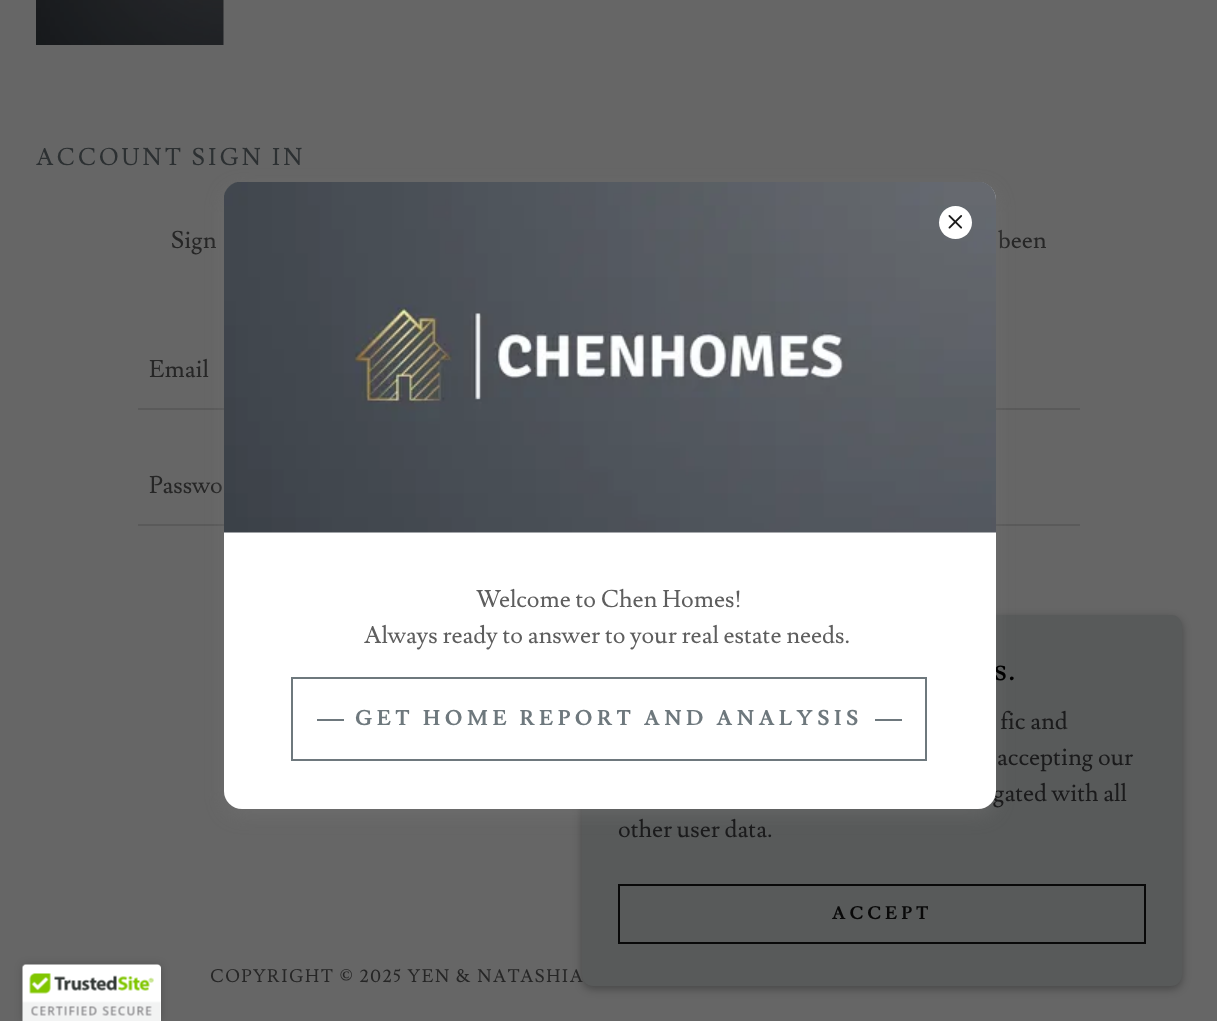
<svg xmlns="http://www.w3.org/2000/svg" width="1217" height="1021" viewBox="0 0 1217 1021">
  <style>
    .t1 { font: 24px Lusitana; letter-spacing: 3px; fill: #2c3032; }
    .t2 { font: 24px Lusitana; fill: #262626; }
    .t3 { font: 18px Lusitana; letter-spacing: 1.5px; fill: #262626; }
    .t4 { font: 33px Lusitana; letter-spacing: 1px; fill: #000; }
    .t5 { font: 24px Lusitana; fill: #1b1b1c; }
    .t6 { font: 24px Lusitana; fill: #5e5e5e; }
    .t7 { font: bold 21px Lusitana; letter-spacing: 4.5px; fill: #6e787d; }
    .t8 { font: bold 18px Lusitana; letter-spacing: 4px; fill: #090909; }
  </style>
  <rect width="100%" height="100%" fill="#666"/>
  <image x="36" y="0" width="188" height="45" href="images/1.png"/>
  <text x="36" y="165" class="t1">ACCOUNT SIGN IN</text>
  <text x="171" y="248" class="t2">Sign</text>
  <text x="998" y="248" class="t2">been</text>
  <rect x="138" y="408" width="942" height="2" fill="#5a5a5a"/>
  <text x="149" y="377" class="t2">Email</text>
  <rect x="138" y="524" width="942" height="2" fill="#5a5a5a"/>
  <text x="149" y="493" class="t2">Passwo</text>
  <rect x="582" y="618" width="600" height="371" rx="11" fill="#0000004d" filter="blur(4.5px)"/>
  <text x="210" y="982" class="t3">COPYRIGHT © 2025 YEN &amp; NATASHIA</text>
  <rect x="582" y="615" width="600" height="371" rx="11" fill="#585a5a"/>
  <rect x="224" y="188" width="772" height="627" rx="18" fill="#75757566" filter="blur(9px)"/>
  <text x="994" y="680" class="t4">s.</text>
  <text x="993" y="801" class="t5">gated with all</text>
  <rect x="224" y="182" width="772" height="627" rx="18" fill="#fff"/>
  <image x="224" y="182" width="772" height="351" href="images/3.png"/>
  <circle cx="955.5" cy="222.5" r="16.5" fill="#fff"/>
  <image x="948" y="215" width="15" height="14" href="images/2.png"/>
  <text x="476" y="607" class="t6">Welcome to Chen Homes!</text>
  <text x="364" y="643" class="t6">Always ready to answer to your real estate needs.</text>
  <rect x="292" y="678" width="634" height="82" fill="none" stroke="#6e787d" stroke-width="2"/>
  <rect x="317" y="719" width="27" height="2" fill="#6e787d"/>
  <text x="355" y="725" class="t7">GET HOME REPORT AND ANALYSIS</text>
  <rect x="875" y="719" width="27" height="2" fill="#6e787d"/>
  <text x="1000" y="729" class="t5">fic and</text>
  <text x="997" y="765" class="t5">accepting our</text>
  <text x="618" y="837" class="t5">other user data.</text>
  <rect x="619" y="885" width="526" height="58" fill="none" stroke="#090909" stroke-width="2"/>
  <text x="832" y="919" class="t8">ACCEPT</text>
  <rect x="23" y="965" width="138" height="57" rx="3" fill="#00000033" filter="blur(4px)"/>
  <path d="M26 965H158C159.5 965 161 966.5 161 968V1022H23V968C23 966.5 24.5 965 26 965Z" fill="#fff"/>
  <image x="22" y="964" width="139" height="57" href="images/4.png"/>
</svg>
